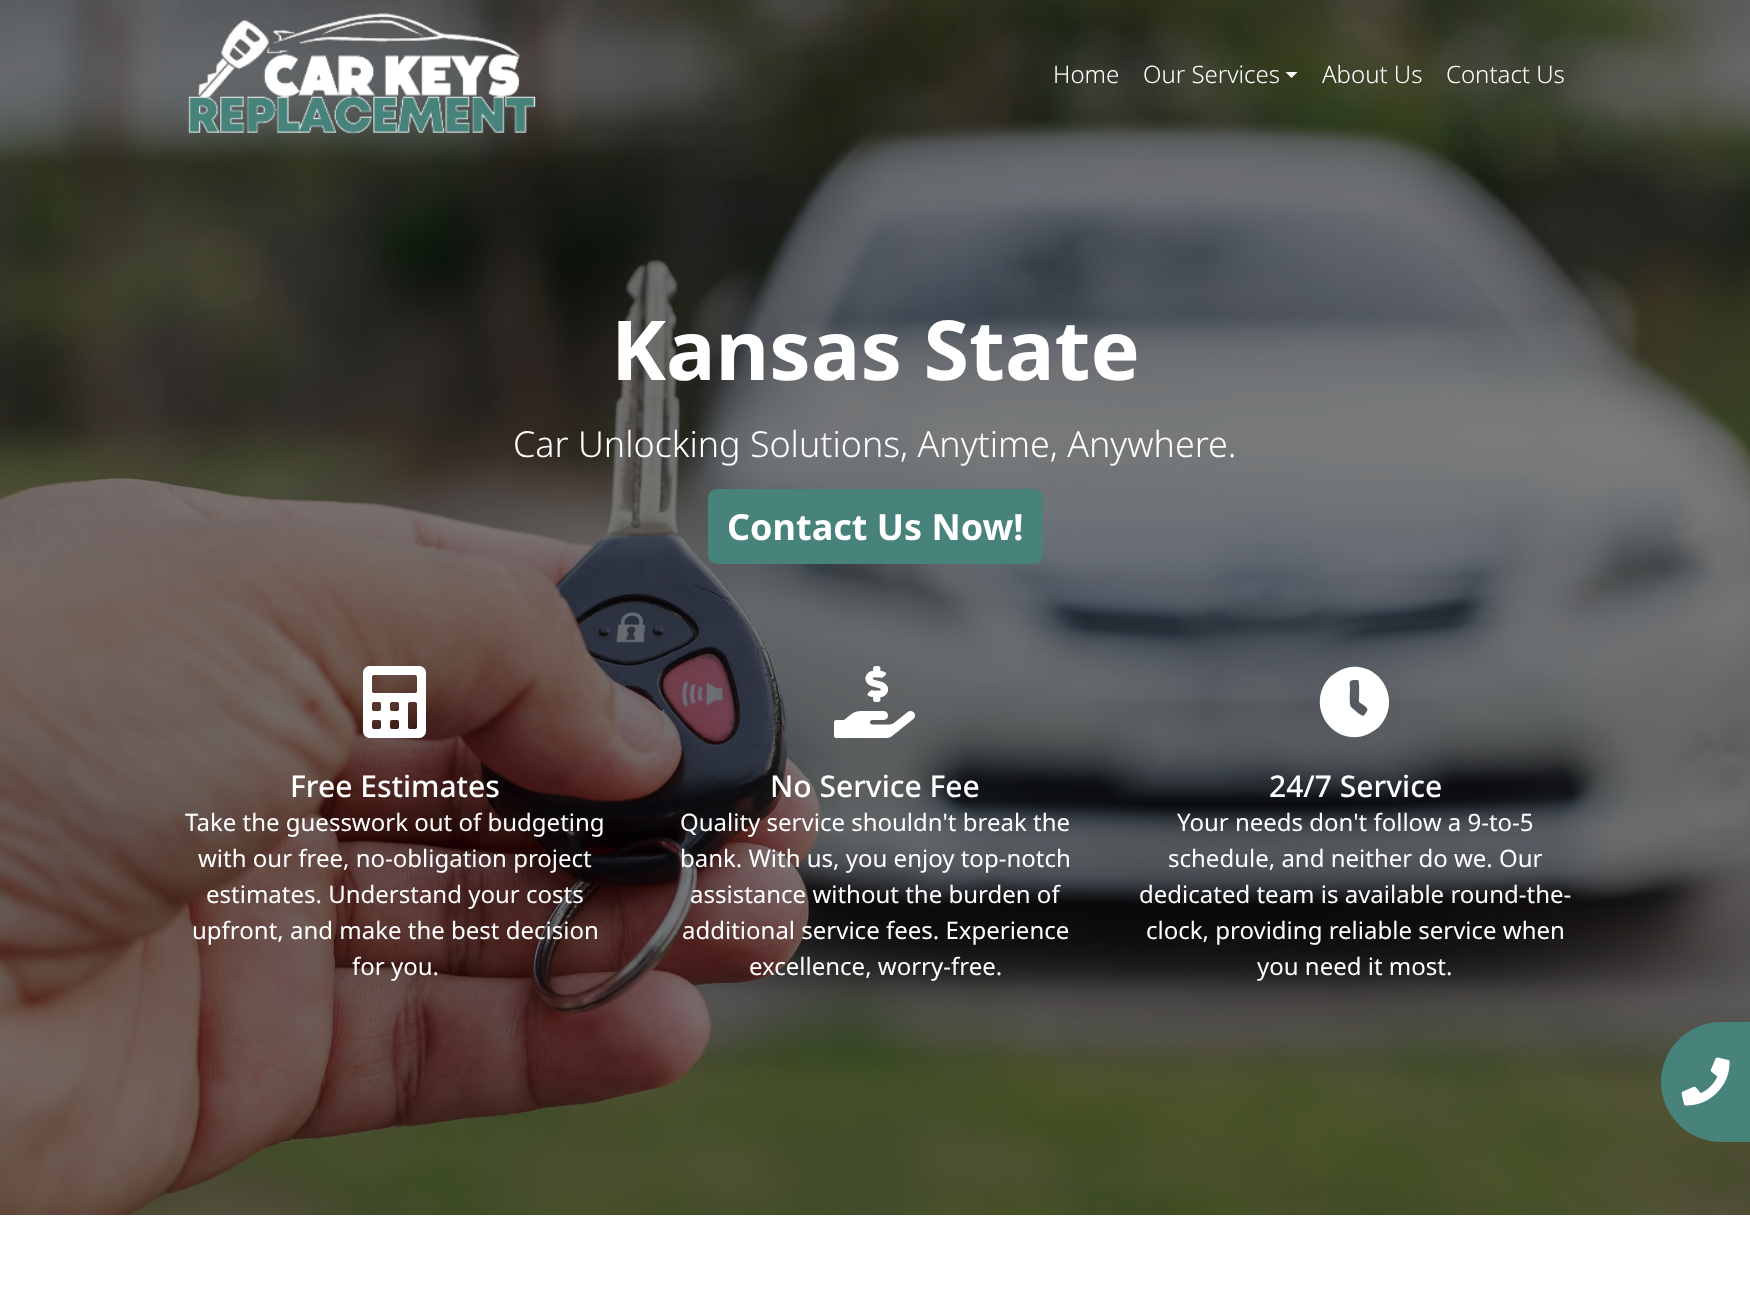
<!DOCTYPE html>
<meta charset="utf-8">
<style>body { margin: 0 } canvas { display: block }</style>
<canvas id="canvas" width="1750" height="1291"></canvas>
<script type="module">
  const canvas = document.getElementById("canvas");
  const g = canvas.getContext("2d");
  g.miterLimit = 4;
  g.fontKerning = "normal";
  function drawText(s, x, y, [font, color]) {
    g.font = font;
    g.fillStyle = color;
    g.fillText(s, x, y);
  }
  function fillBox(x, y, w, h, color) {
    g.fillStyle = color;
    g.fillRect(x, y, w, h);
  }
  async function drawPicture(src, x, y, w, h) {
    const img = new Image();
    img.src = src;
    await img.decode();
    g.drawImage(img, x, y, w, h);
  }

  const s1 = ["300 24px Noto Sans", "#FFFFFF"];
  const s2 = ["bold 82.75px Noto Sans", "#FFFFFF"];
  const s3 = ["300 35.85px Noto Sans", "#FFFFFF"];
  const s4 = ["bold 36px Noto Sans", "#FFFFFF"];
  const s5 = ["500 30px Noto Sans", "#FFFFFF"];
  const s6 = ["24px Noto Sans", "#FFFFFF"];

  fillBox(0, 0, 1750, 1291, "#FFFFFF");
  await drawPicture("pic2.png", 0, 0, 1750, 1215);
  await drawPicture("pic1.png", 188, 13, 348, 121);
  drawText("Home", 1053, 83, s1);
  drawText("Our Services", 1143, 83, s1);
  g.beginPath();
  g.moveTo(1285.5, 72);
  g.lineTo(1297.5, 72);
  g.lineTo(1291.5, 78);
  g.closePath();
  g.fill();
  drawText("About Us", 1322, 83, s1);
  drawText("Contact Us", 1446, 83, s1);
  drawText("Kansas State", 611, 380, s2);
  drawText("Car Unlocking Solutions, Anytime, Anywhere.", 513, 457, s3);
  g.fillStyle = "#47827B";
  g.beginPath();
  g.roundRect(709, 490, 333, 73, 8);
  g.fill();
  g.strokeStyle = "#47827B";
  g.lineWidth = 2;
  g.stroke();
  drawText("Contact Us Now!", 727, 540, s4);
  await drawPicture("pic3.png", 363, 666, 63, 72);
  drawText("Free Estimates", 290, 797, s5);
  drawText("Take the guesswork out of budgeting", 185, 831, s6);
  drawText("with our free, no-obligation project", 198, 867, s6);
  drawText("estimates. Understand your costs", 206, 903, s6);
  drawText("upfront, and make the best decision", 192, 939, s6);
  drawText("for you.", 352, 975, s6);
  await drawPicture("pic4.png", 834, 666, 81, 72);
  drawText("No Service Fee", 770, 797, s5);
  drawText("Quality service shouldn't break the", 680, 831, s6);
  drawText("bank. With us, you enjoy top-notch", 680, 867, s6);
  drawText("assistance without the burden of", 690, 903, s6);
  drawText("additional service fees. Experience", 682, 939, s6);
  drawText("excellence, worry-free.", 749, 975, s6);
  g.beginPath();
  g.moveTo(1330, 677);
  g.bezierCurveTo(1336, 672, 1343, 668, 1351, 667);
  g.bezierCurveTo(1383, 664, 1402, 703, 1379, 727);
  g.bezierCurveTo(1373, 732, 1366, 736, 1358, 737);
  g.bezierCurveTo(1326, 740, 1307, 701, 1330, 677);
  g.closePath();
  g.moveTo(1367, 711);
  g.bezierCurveTo(1370, 708, 1360, 703, 1359, 702);
  g.bezierCurveTo(1359, 699, 1360, 681, 1358, 680);
  g.lineTo(1354, 680);
  g.bezierCurveTo(1348, 680, 1350, 684, 1350, 689);
  g.bezierCurveTo(1350, 693, 1349, 704, 1351, 707);
  g.lineTo(1358, 713);
  g.bezierCurveTo(1364, 717, 1363, 717, 1367, 711);
  g.closePath();
  g.fill();
  drawText("24/7 Service", 1269, 797, s5);
  drawText("Your needs don't follow a 9-to-5", 1177, 831, s6);
  drawText("schedule, and neither do we. Our", 1168, 867, s6);
  drawText("dedicated team is available round-the-", 1139, 903, s6);
  drawText("clock, providing reliable service when", 1146, 939, s6);
  drawText("you need it most.", 1257, 975, s6);
  g.fillStyle = "#47827B";
  g.beginPath();
  g.moveTo(1721, 1022);
  g.lineTo(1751, 1022);
  g.lineTo(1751, 1142);
  g.lineTo(1721, 1142);
  g.bezierCurveTo(1688, 1142, 1661, 1115, 1661, 1082);
  g.bezierCurveTo(1661, 1049, 1688, 1022, 1721, 1022);
  g.closePath();
  g.fill();
  await drawPicture("pic5.png", 1681, 1057, 49, 49);
</script>
